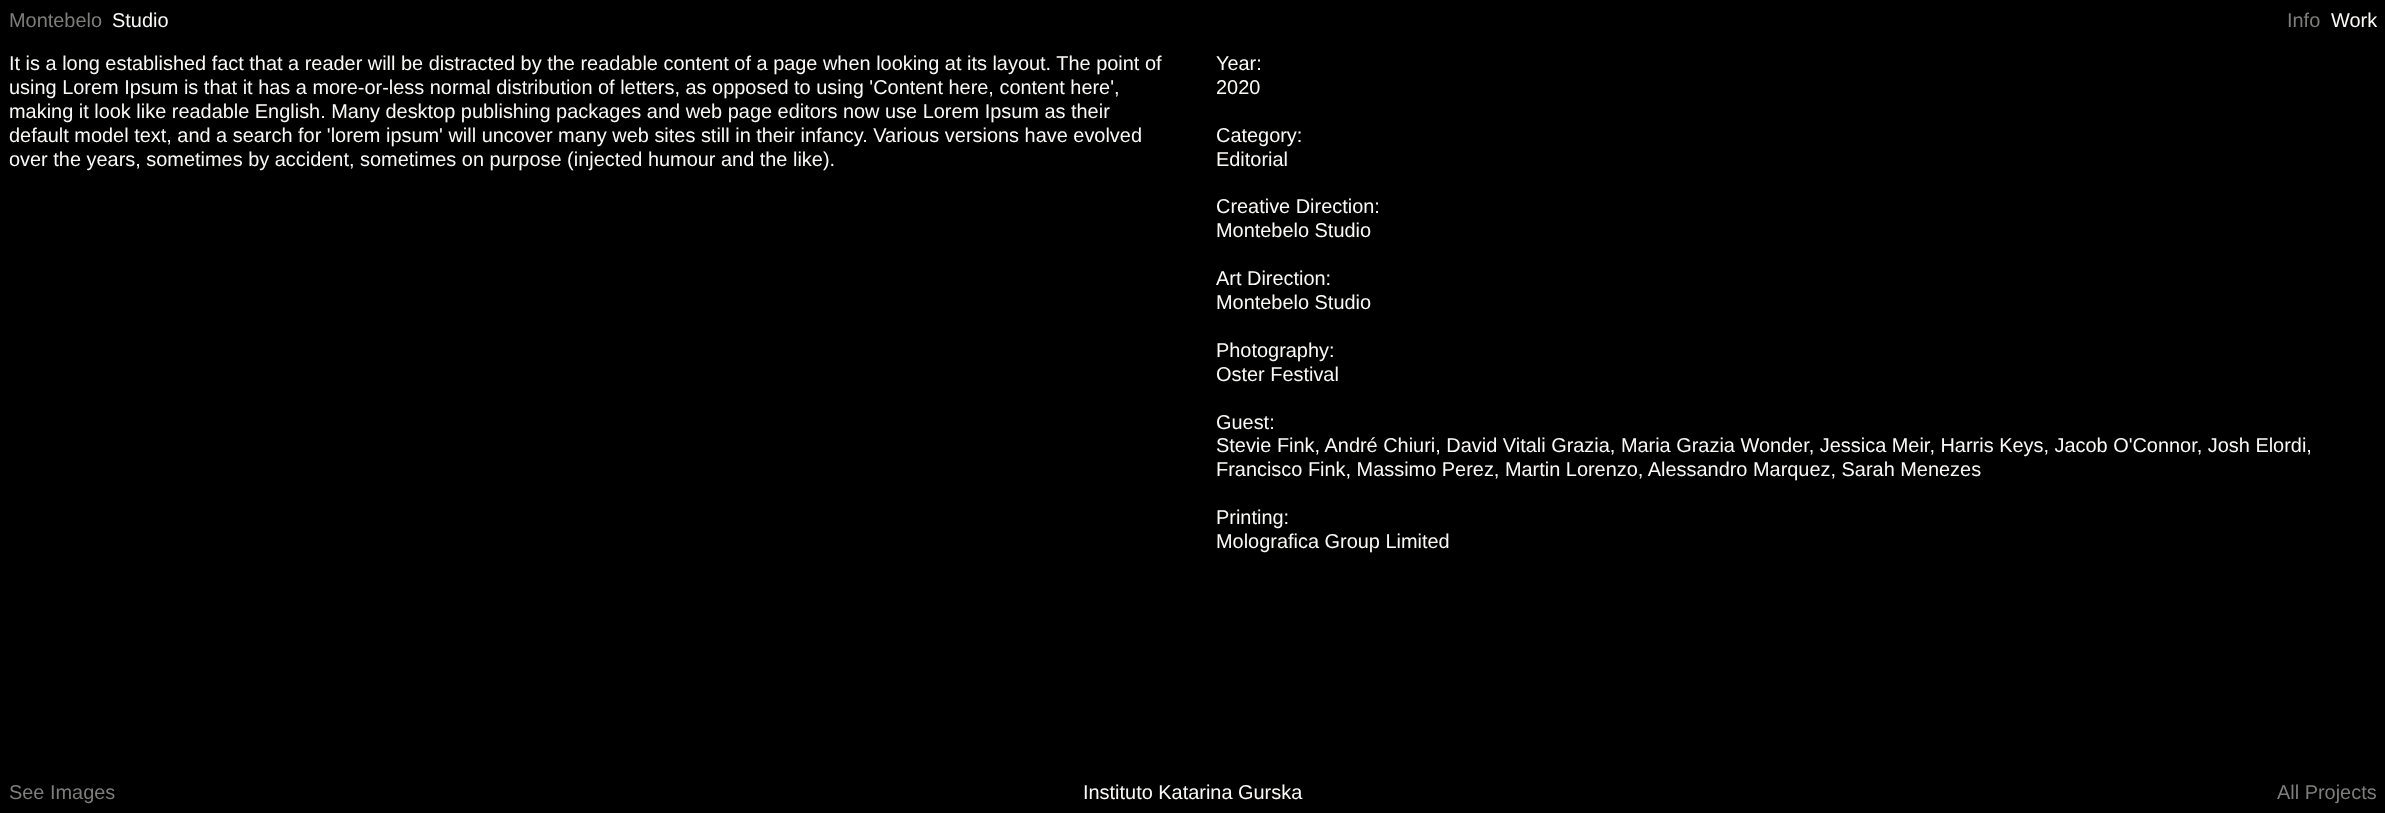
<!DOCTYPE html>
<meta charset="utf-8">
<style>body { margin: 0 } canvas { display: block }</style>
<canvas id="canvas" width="2385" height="813"></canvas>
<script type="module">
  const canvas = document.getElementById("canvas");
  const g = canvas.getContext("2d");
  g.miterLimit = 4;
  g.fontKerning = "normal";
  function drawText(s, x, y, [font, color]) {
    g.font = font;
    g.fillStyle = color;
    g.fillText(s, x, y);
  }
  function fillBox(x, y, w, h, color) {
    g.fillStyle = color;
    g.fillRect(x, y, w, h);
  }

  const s1 = ["19.93px Liberation Sans", "#7D7D7C"];
  const s2 = ["19.93px Liberation Sans", "#FAF9F7"];

  fillBox(0, 0, 2385, 813, "#000000");
  drawText("Montebelo", 9, 27, s1);
  drawText("Studio", 112, 27, s2);
  drawText("Info", 2287, 27, s1);
  drawText("Work", 2331, 27, s2);
  drawText("It is a long established fact that a reader will be distracted by the readable content of a page when looking at its layout. The point of", 9, 70, s2);
  drawText("using Lorem Ipsum is that it has a more-or-less normal distribution of letters, as opposed to using 'Content here, content here',", 9, 94, s2);
  drawText("making it look like readable English. Many desktop publishing packages and web page editors now use Lorem Ipsum as their", 9, 118, s2);
  drawText("default model text, and a search for 'lorem ipsum' will uncover many web sites still in their infancy. Various versions have evolved", 9, 142, s2);
  drawText("over the years, sometimes by accident, sometimes on purpose (injected humour and the like).", 9, 166, s2);
  drawText("Year:", 1216, 70, s2);
  drawText("2020", 1216, 94, s2);
  drawText("Category:", 1216, 142, s2);
  drawText("Editorial", 1216, 166, s2);
  drawText("Creative Direction:", 1216, 213, s2);
  drawText("Montebelo Studio", 1216, 237, s2);
  drawText("Art Direction:", 1216, 285, s2);
  drawText("Montebelo Studio", 1216, 309, s2);
  drawText("Photography:", 1216, 357, s2);
  drawText("Oster Festival", 1216, 381, s2);
  drawText("Guest:", 1216, 429, s2);
  drawText("Stevie Fink, André Chiuri, David Vitali Grazia, Maria Grazia Wonder, Jessica Meir, Harris Keys, Jacob O'Connor, Josh Elordi,", 1216, 452, s2);
  drawText("Francisco Fink, Massimo Perez, Martin Lorenzo, Alessandro Marquez, Sarah Menezes", 1216, 476, s2);
  drawText("Printing:", 1216, 524, s2);
  drawText("Molografica Group Limited", 1216, 548, s2);
  drawText("See Images", 9, 799, s1);
  drawText("Instituto Katarina Gurska", 1083, 799, s2);
  drawText("All Projects", 2277, 799, s1);
</script>
